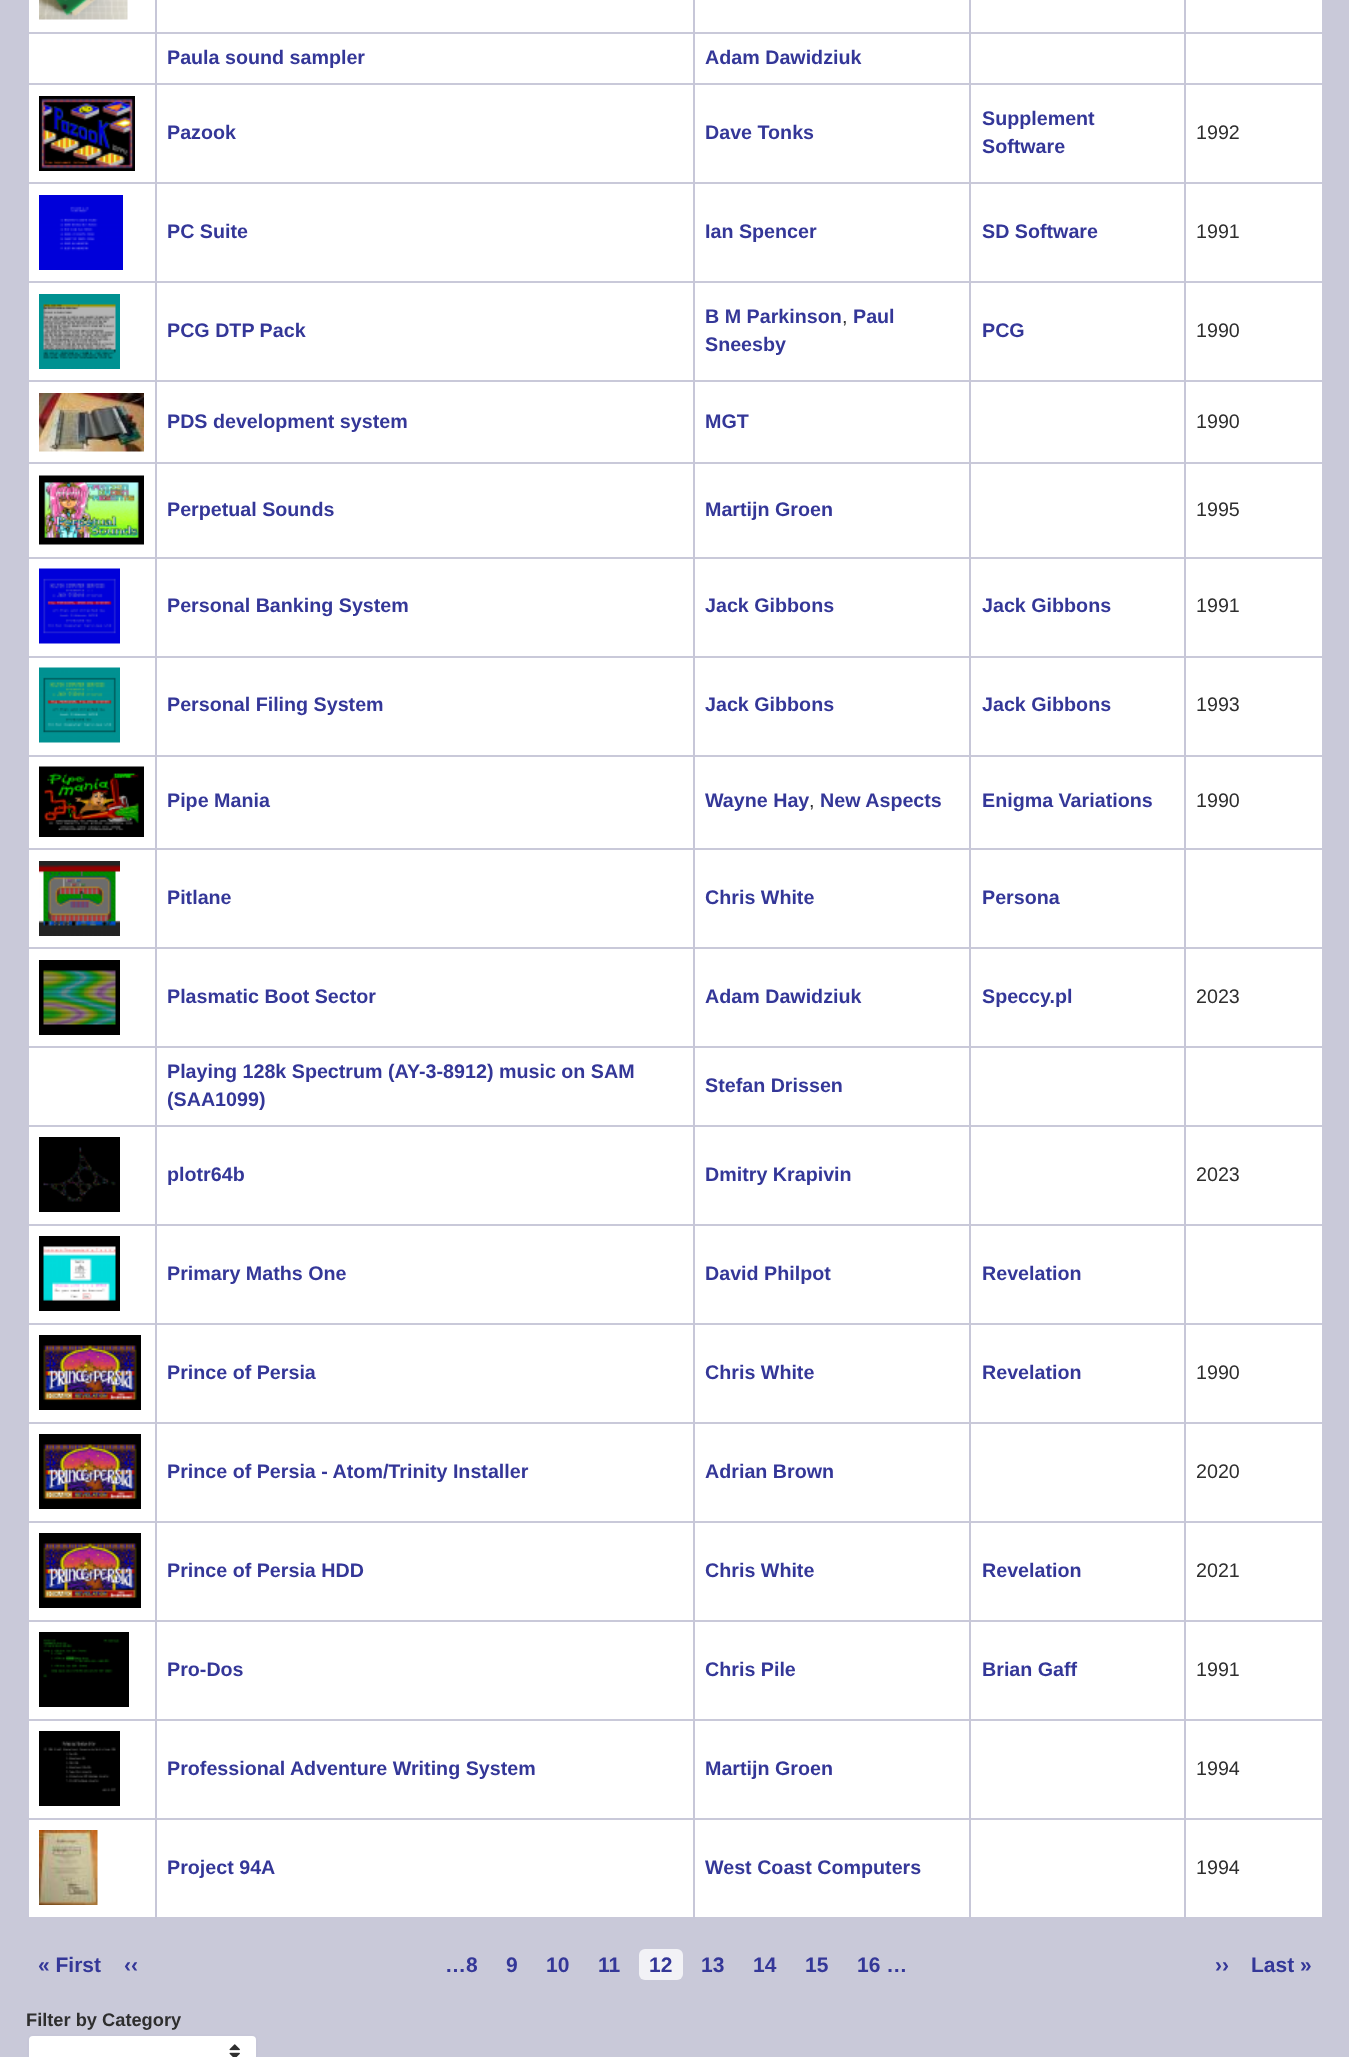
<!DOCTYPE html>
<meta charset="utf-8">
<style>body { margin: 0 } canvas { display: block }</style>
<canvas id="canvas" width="1349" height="2057"></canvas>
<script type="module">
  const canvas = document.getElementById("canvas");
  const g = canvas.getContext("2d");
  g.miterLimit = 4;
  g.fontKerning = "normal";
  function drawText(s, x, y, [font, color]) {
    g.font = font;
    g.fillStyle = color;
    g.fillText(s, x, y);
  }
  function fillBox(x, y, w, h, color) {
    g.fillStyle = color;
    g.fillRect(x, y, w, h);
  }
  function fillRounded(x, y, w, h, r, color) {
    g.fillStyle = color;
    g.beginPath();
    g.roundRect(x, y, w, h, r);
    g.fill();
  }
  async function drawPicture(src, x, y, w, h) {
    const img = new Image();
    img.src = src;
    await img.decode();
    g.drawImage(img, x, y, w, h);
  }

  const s1 = ["bold 19.7px Liberation Sans", "#343798"];
  const s2 = ["19.7px Liberation Sans", "#2E2E2E"];
  const s3 = ["bold 21px Liberation Sans", "#343798"];
  const s4 = ["bold 18.25px Liberation Sans", "#2E2E2E"];

  fillBox(0, 0, 1349, 2057, "#C9C9D9");
  fillBox(29, 0, 1293, 32, "#FFFFFF");
  await drawPicture("pic1.png", 39, 0, 89, 20);
  fillBox(29, 34, 1293, 49, "#FFFFFF");
  drawText("Paula sound sampler", 167, 64, s1);
  drawText("Adam Dawidziuk", 705, 64, s1);
  fillBox(29, 85, 1293, 97, "#FFFFFF");
  await drawPicture("pic2.png", 39, 96, 96, 75);
  drawText("Pazook", 167, 139, s1);
  drawText("Dave Tonks", 705, 139, s1);
  drawText("Supplement", 982, 125, s1);
  drawText("Software", 982, 153, s1);
  drawText("1992", 1196, 139, s2);
  fillBox(29, 184, 1293, 97, "#FFFFFF");
  await drawPicture("pic3.png", 39, 195, 84, 75);
  drawText("PC Suite", 167, 238, s1);
  drawText("Ian Spencer", 705, 238, s1);
  drawText("SD Software", 982, 238, s1);
  drawText("1991", 1196, 238, s2);
  fillBox(29, 283, 1293, 97, "#FFFFFF");
  await drawPicture("pic4.png", 39, 294, 81, 75);
  drawText("PCG DTP Pack", 167, 337, s1);
  drawText("B M Parkinson", 705, 323, s1);
  drawText(",", 842, 323, s2);
  drawText("Paul", 853, 323, s1);
  drawText("Sneesby", 705, 351, s1);
  drawText("PCG", 982, 337, s1);
  drawText("1990", 1196, 337, s2);
  fillBox(29, 382, 1293, 80, "#FFFFFF");
  await drawPicture("pic5.png", 39, 393, 105, 59);
  drawText("PDS development system", 167, 428, s1);
  drawText("MGT", 705, 428, s1);
  drawText("1990", 1196, 428, s2);
  fillBox(29, 464, 1293, 93, "#FFFFFF");
  await drawPicture("pic6.png", 39, 475, 105, 70);
  drawText("Perpetual Sounds", 167, 516, s1);
  drawText("Martijn Groen", 705, 516, s1);
  drawText("1995", 1196, 516, s2);
  fillBox(29, 559, 1293, 97, "#FFFFFF");
  await drawPicture("pic7.png", 39, 568, 81, 76);
  drawText("Personal Banking System", 167, 612, s1);
  drawText("Jack Gibbons", 705, 612, s1);
  drawText("Jack Gibbons", 982, 612, s1);
  drawText("1991", 1196, 612, s2);
  fillBox(29, 658, 1293, 97, "#FFFFFF");
  await drawPicture("pic8.png", 39, 667, 81, 76);
  drawText("Personal Filing System", 167, 711, s1);
  drawText("Jack Gibbons", 705, 711, s1);
  drawText("Jack Gibbons", 982, 711, s1);
  drawText("1993", 1196, 711, s2);
  fillBox(29, 757, 1293, 91, "#FFFFFF");
  await drawPicture("pic9.png", 39, 766, 105, 71);
  drawText("Pipe Mania", 167, 807, s1);
  drawText("Wayne Hay", 705, 807, s1);
  drawText(",", 809, 807, s2);
  drawText("New Aspects", 820, 807, s1);
  drawText("Enigma Variations", 982, 807, s1);
  drawText("1990", 1196, 807, s2);
  fillBox(29, 850, 1293, 97, "#FFFFFF");
  await drawPicture("pic10.png", 39, 861, 81, 75);
  drawText("Pitlane", 167, 904, s1);
  drawText("Chris White", 705, 904, s1);
  drawText("Persona", 982, 904, s1);
  fillBox(29, 949, 1293, 97, "#FFFFFF");
  await drawPicture("pic11.png", 39, 960, 81, 75);
  drawText("Plasmatic Boot Sector", 167, 1003, s1);
  drawText("Adam Dawidziuk", 705, 1003, s1);
  drawText("Speccy.pl", 982, 1003, s1);
  drawText("2023", 1196, 1003, s2);
  fillBox(29, 1048, 1293, 77, "#FFFFFF");
  drawText("Playing 128k Spectrum (AY-3-8912) music on SAM", 167, 1078, s1);
  drawText("(SAA1099)", 167, 1106, s1);
  drawText("Stefan Drissen", 705, 1092, s1);
  fillBox(29, 1127, 1293, 97, "#FFFFFF");
  await drawPicture("pic12.png", 39, 1137, 81, 75);
  drawText("plotr64b", 167, 1181, s1);
  drawText("Dmitry Krapivin", 705, 1181, s1);
  drawText("2023", 1196, 1181, s2);
  fillBox(29, 1226, 1293, 97, "#FFFFFF");
  await drawPicture("pic13.png", 39, 1236, 81, 75);
  drawText("Primary Maths One", 167, 1280, s1);
  drawText("David Philpot", 705, 1280, s1);
  drawText("Revelation", 982, 1280, s1);
  fillBox(29, 1325, 1293, 97, "#FFFFFF");
  await drawPicture("pic14.png", 39, 1335, 102, 75);
  drawText("Prince of Persia", 167, 1379, s1);
  drawText("Chris White", 705, 1379, s1);
  drawText("Revelation", 982, 1379, s1);
  drawText("1990", 1196, 1379, s2);
  fillBox(29, 1424, 1293, 97, "#FFFFFF");
  await drawPicture("pic14.png", 39, 1434, 102, 75);
  drawText("Prince of Persia - Atom/Trinity Installer", 167, 1478, s1);
  drawText("Adrian Brown", 705, 1478, s1);
  drawText("2020", 1196, 1478, s2);
  fillBox(29, 1523, 1293, 97, "#FFFFFF");
  await drawPicture("pic14.png", 39, 1533, 102, 75);
  drawText("Prince of Persia HDD", 167, 1577, s1);
  drawText("Chris White", 705, 1577, s1);
  drawText("Revelation", 982, 1577, s1);
  drawText("2021", 1196, 1577, s2);
  fillBox(29, 1622, 1293, 97, "#FFFFFF");
  await drawPicture("pic15.png", 39, 1632, 90, 75);
  drawText("Pro-Dos", 167, 1676, s1);
  drawText("Chris Pile", 705, 1676, s1);
  drawText("Brian Gaff", 982, 1676, s1);
  drawText("1991", 1196, 1676, s2);
  fillBox(29, 1721, 1293, 97, "#FFFFFF");
  await drawPicture("pic16.png", 39, 1731, 81, 75);
  drawText("Professional Adventure Writing System", 167, 1775, s1);
  drawText("Martijn Groen", 705, 1775, s1);
  drawText("1994", 1196, 1775, s2);
  fillBox(29, 1820, 1293, 97, "#FFFFFF");
  await drawPicture("pic17.png", 39, 1830, 59, 75);
  fillBox(155, 0, 2, 1919, "#C7C7D8");
  drawText("Project 94A", 167, 1874, s1);
  fillBox(693, 0, 2, 1919, "#C7C7D8");
  drawText("West Coast Computers", 705, 1874, s1);
  fillBox(969, 0, 2, 1919, "#C7C7D8");
  fillBox(1184, 0, 2, 1919, "#C7C7D8");
  drawText("1994", 1196, 1874, s2);
  drawText("« First", 38, 1972, s3);
  drawText("‹‹", 124, 1972, s3);
  drawText("…8", 445, 1972, s3);
  drawText("9", 506, 1972, s3);
  drawText("10", 546, 1972, s3);
  drawText("11", 598, 1972, s3);
  fillRounded(639, 1949, 44, 31, 6, "#F2F2F6");
  drawText("12", 649, 1972, s3);
  drawText("13", 701, 1972, s3);
  drawText("14", 753, 1972, s3);
  drawText("15", 805, 1972, s3);
  drawText("16 …", 857, 1972, s3);
  drawText("››", 1215, 1972, s3);
  drawText("Last »", 1251, 1972, s3);
  drawText("Filter by Category", 26, 2026, s4);
  g.fillStyle = "#FFFFFF";
  g.beginPath();
  g.roundRect(28, 2035, 229, 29, 5);
  g.fill();
  g.strokeStyle = "#C7C7D8";
  g.lineWidth = 2;
  g.stroke();
  await drawPicture("pic18.png", 229, 2044, 11, 13);
</script>
